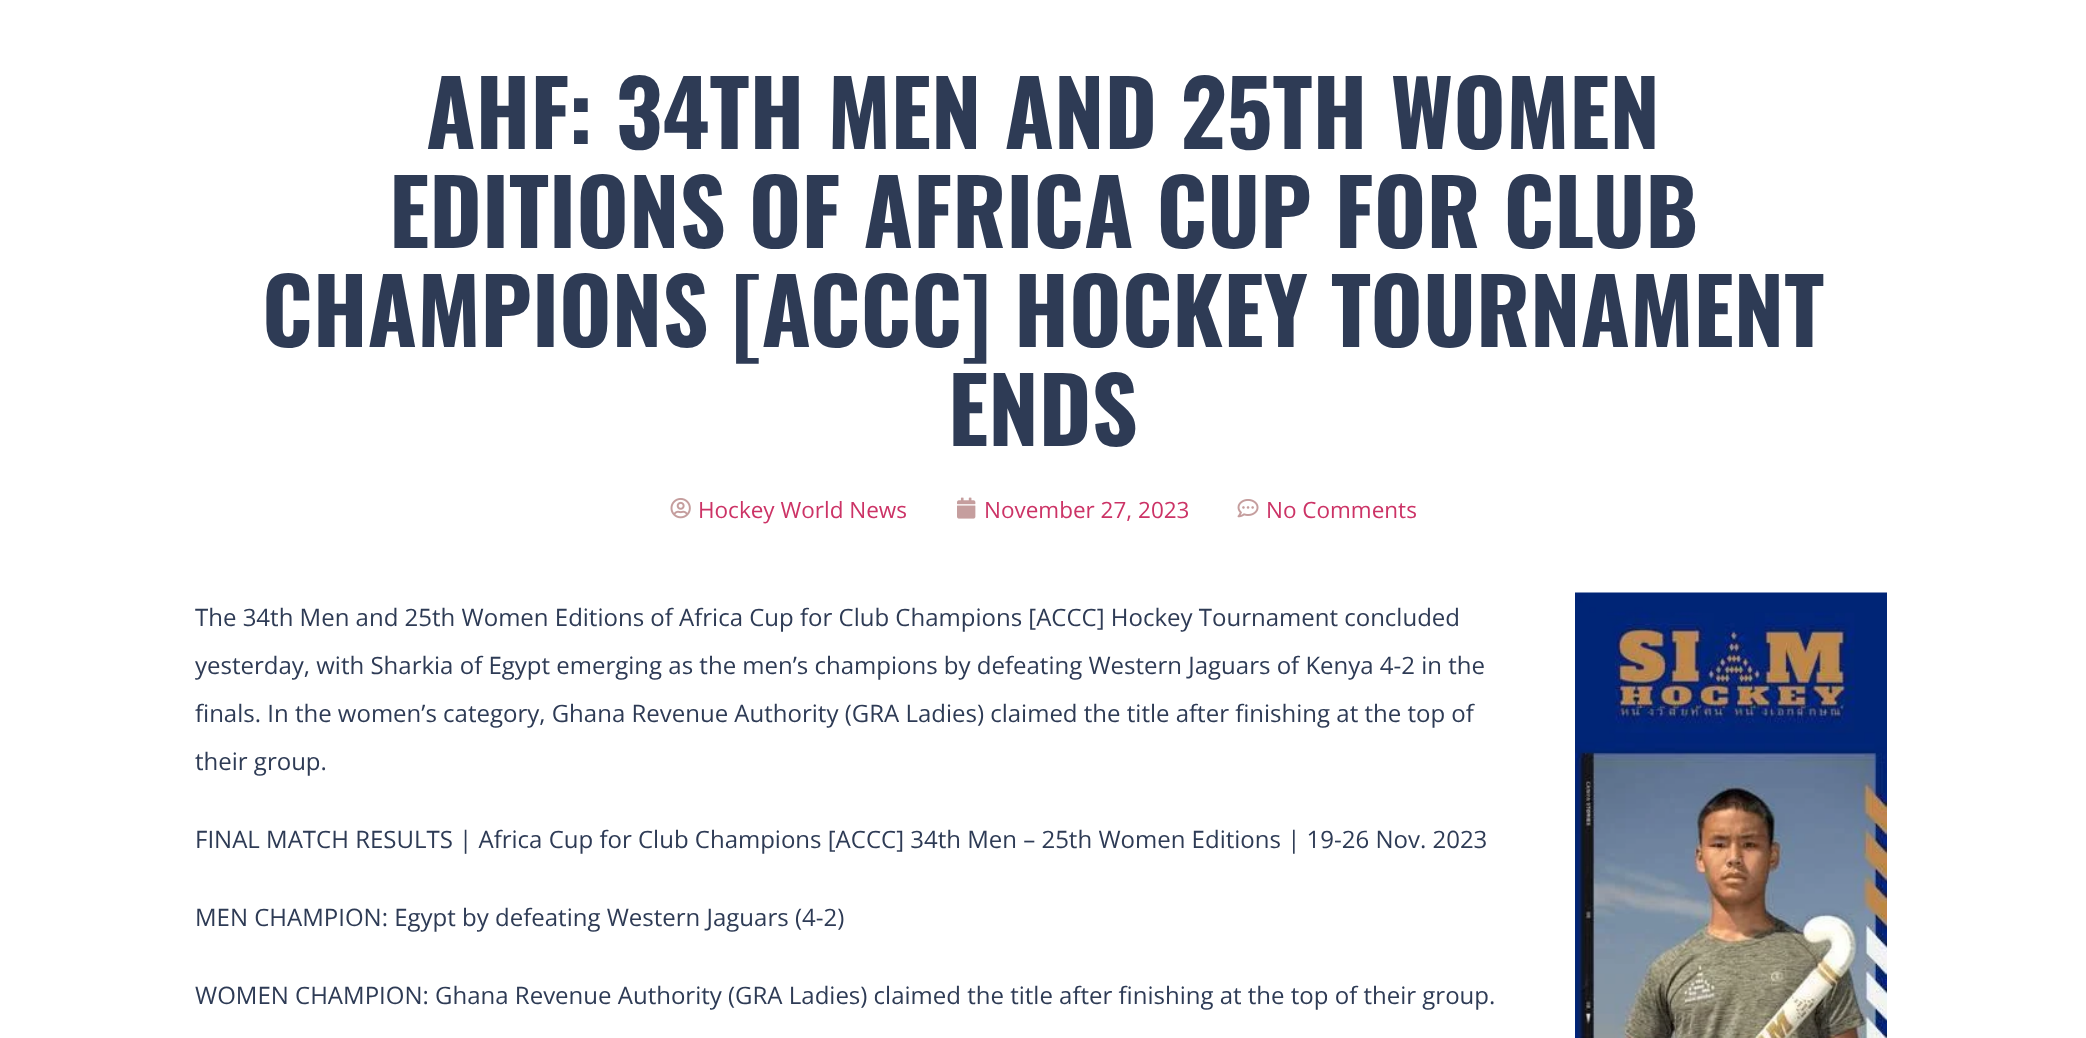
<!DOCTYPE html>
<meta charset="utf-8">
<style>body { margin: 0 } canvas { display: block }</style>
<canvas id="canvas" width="2086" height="1038"></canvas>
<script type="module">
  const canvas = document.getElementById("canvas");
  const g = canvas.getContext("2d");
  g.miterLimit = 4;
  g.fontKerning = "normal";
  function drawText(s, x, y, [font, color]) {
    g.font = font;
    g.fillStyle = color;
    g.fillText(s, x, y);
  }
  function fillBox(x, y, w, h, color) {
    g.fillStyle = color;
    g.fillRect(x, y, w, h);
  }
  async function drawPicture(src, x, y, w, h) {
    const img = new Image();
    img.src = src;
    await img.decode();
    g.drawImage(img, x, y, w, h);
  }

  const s1 = ["bold 90px Oswald", "#2E3B55"];
  const s2 = ["22.5px Open Sans", "#CC3366"];
  const s3 = ["24px Open Sans", "#2E3B55"];

  fillBox(0, 0, 2086, 1038, "#FFFFFF");
  drawText("AHF: 34TH MEN AND 25TH WOMEN", 426, 149, s1);
  drawText("EDITIONS OF AFRICA CUP FOR CLUB", 389, 248, s1);
  drawText("CHAMPIONS [ACCC] HOCKEY TOURNAMENT", 262, 347, s1);
  drawText("ENDS", 948, 446, s1);
  await drawPicture("pic1.png", 670, 498, 21, 21);
  drawText("Hockey World News", 698, 518, s2);
  await drawPicture("pic2.png", 957, 497, 19, 22);
  drawText("November 27, 2023", 984, 518, s2);
  await drawPicture("pic3.png", 1237, 499, 22, 19);
  drawText("No Comments", 1266, 518, s2);
  drawText("The 34th Men and 25th Women Editions of Africa Cup for Club Champions [ACCC] Hockey Tournament concluded", 195, 626, s3);
  drawText("yesterday, with Sharkia of Egypt emerging as the men’s champions by defeating Western Jaguars of Kenya 4-2 in the", 195, 674, s3);
  drawText("finals. In the women’s category, Ghana Revenue Authority (GRA Ladies) claimed the title after finishing at the top of", 195, 722, s3);
  drawText("their group.", 195, 770, s3);
  drawText("FINAL MATCH RESULTS | Africa Cup for Club Champions [ACCC] 34th Men – 25th Women Editions | 19-26 Nov. 2023", 195, 848, s3);
  drawText("MEN CHAMPION: Egypt by defeating Western Jaguars (4-2)", 195, 926, s3);
  drawText("WOMEN CHAMPION: Ghana Revenue Authority (GRA Ladies) claimed the title after finishing at the top of their group.", 195, 1004, s3);
  await drawPicture("pic4.png", 1575, 592, 312, 446);
</script>
